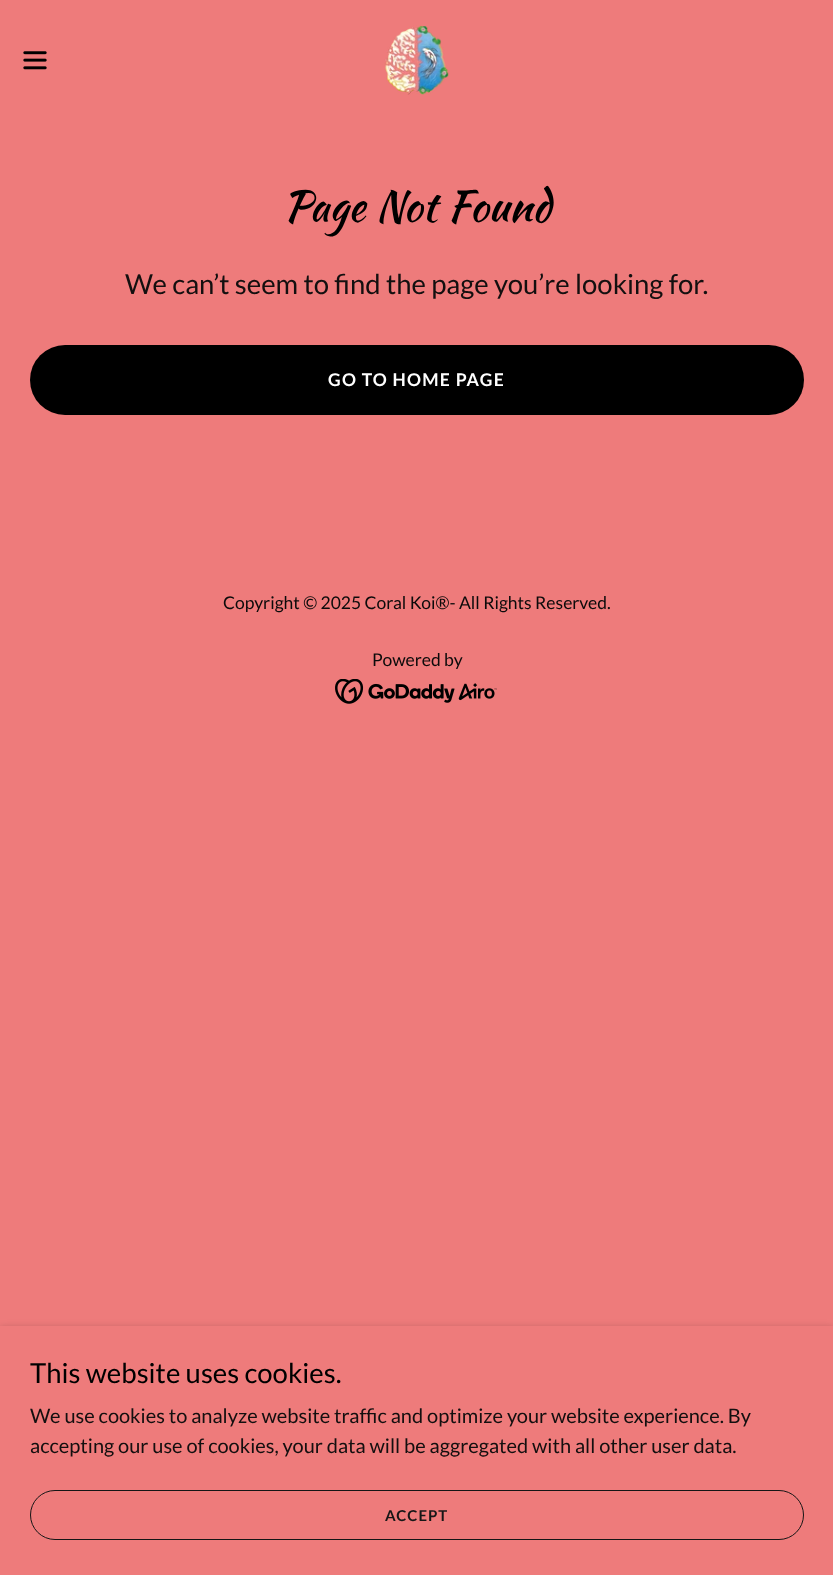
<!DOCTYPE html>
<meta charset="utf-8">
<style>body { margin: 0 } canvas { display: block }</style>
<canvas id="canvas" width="833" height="1575"></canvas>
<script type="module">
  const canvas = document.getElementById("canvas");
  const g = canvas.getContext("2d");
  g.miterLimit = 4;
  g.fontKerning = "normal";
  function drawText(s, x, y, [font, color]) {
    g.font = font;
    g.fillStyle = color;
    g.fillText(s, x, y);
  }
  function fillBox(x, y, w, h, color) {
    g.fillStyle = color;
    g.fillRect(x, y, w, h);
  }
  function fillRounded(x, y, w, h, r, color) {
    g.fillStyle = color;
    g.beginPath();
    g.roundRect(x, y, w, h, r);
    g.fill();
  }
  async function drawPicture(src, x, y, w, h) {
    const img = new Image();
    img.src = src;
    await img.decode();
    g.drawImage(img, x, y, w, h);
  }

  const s1 = ["42.5px Kaushan Script", "#000000"];
  const s2 = ["27.5px Lato", "#130F0F"];
  const s3 = ["bold 17.5px Lato", "#FFFFFF"];
  const s4 = ["17.5px Lato", "#0B0A0A"];
  const s5 = ["27.5px Lato", "#000000"];
  const s6 = ["20px Lato", "#130F0F"];
  const s7 = ["bold 15px Lato", "#161616"];

  fillBox(0, 0, 833, 1575, "#EE7B7B");
  await drawPicture("pic1.png", 23, 51, 24, 19);
  await drawPicture("pic2.png", 384, 25, 65, 70);
  drawText("Page Not Found", 283, 221, s1);
  drawText("We can’t seem to find the page you’re looking for.", 125, 294, s2);
  fillRounded(30, 345, 774, 70, 35, "#000000");
  g.letterSpacing = "1.25px";
  drawText("GO TO HOME PAGE", 328, 386, s3);
  g.letterSpacing = "0px";
  drawText("Copyright © 2025 Coral Koi®- All Rights Reserved.", 223, 609, s4);
  drawText("Powered by", 372, 666, s4);
  await drawPicture("pic3.png", 335, 679, 162, 25);
  g.fillStyle = "rgba(0, 0, 0, 0.3)";
  g.filter = "blur(4px)";
  g.beginPath();
  g.rect(0, 1329, 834, 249);
  g.fill();
  g.filter = "none";
  fillBox(0, 1326, 833, 249, "#EE7B7B");
  drawText("This website uses cookies.", 30, 1383, s5);
  drawText("We use cookies to analyze website traffic and optimize your website experience. By", 30, 1423, s6);
  drawText("accepting our use of cookies, your data will be aggregated with all other user data.", 30, 1453, s6);
  g.beginPath();
  g.roundRect(30.5, 1490.5, 773, 49, 24.5);
  g.strokeStyle = "#161616";
  g.stroke();
  g.letterSpacing = "1px";
  drawText("ACCEPT", 385, 1521, s7);
</script>
